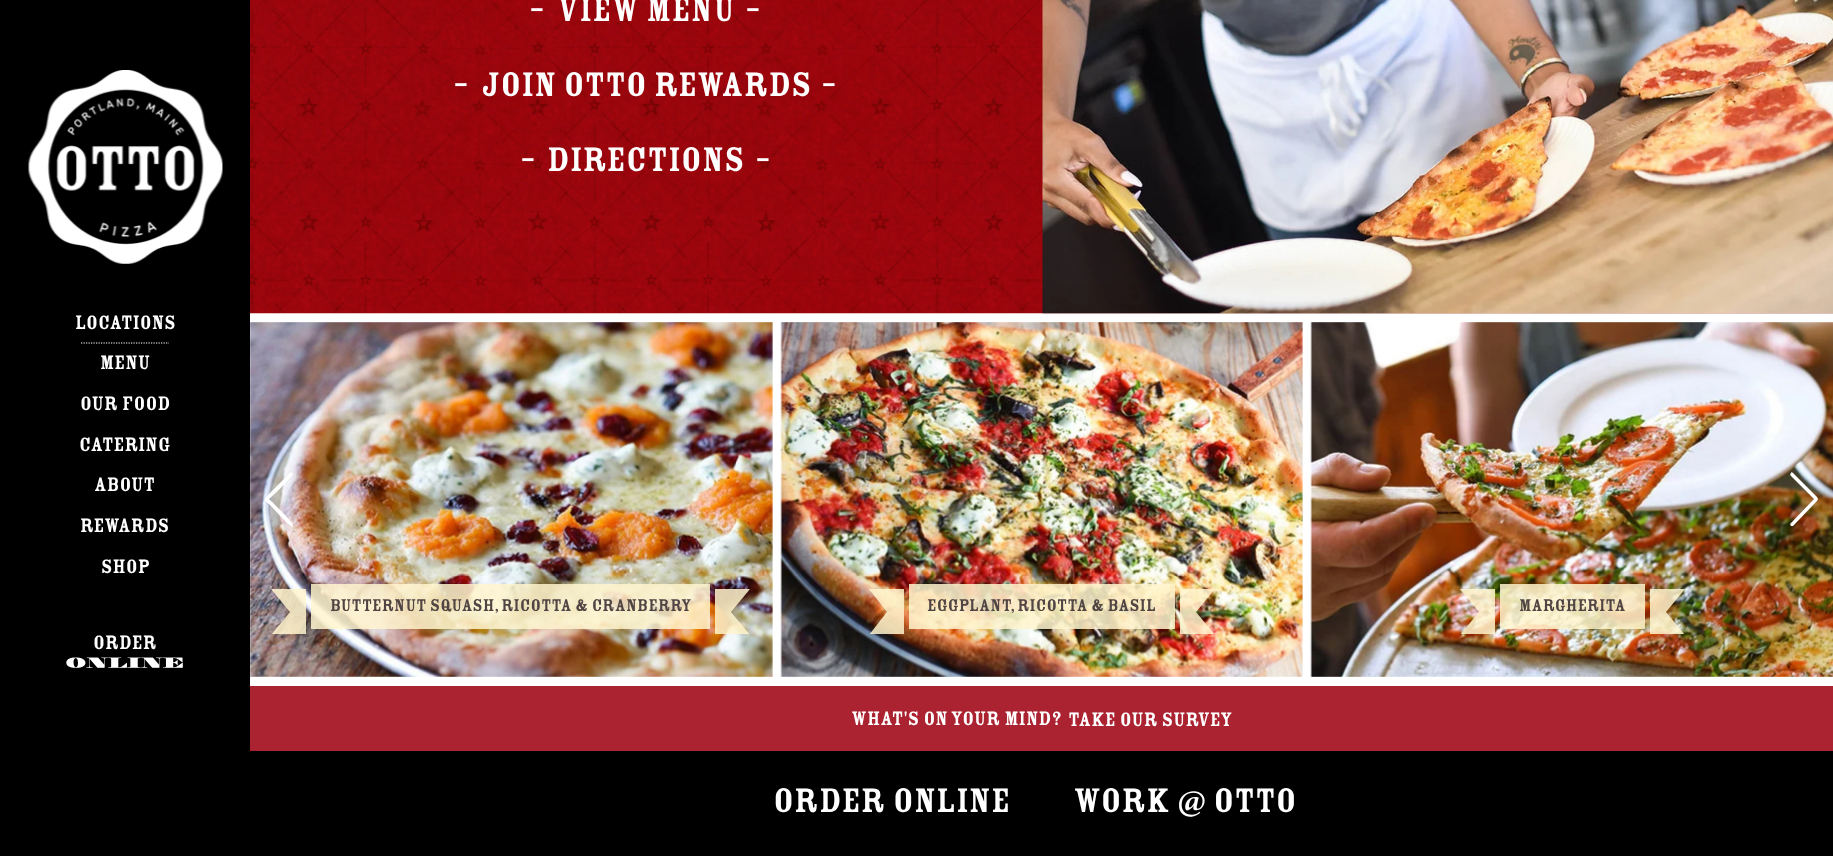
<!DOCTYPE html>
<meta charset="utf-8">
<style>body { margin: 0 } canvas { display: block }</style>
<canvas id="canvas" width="1833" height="856"></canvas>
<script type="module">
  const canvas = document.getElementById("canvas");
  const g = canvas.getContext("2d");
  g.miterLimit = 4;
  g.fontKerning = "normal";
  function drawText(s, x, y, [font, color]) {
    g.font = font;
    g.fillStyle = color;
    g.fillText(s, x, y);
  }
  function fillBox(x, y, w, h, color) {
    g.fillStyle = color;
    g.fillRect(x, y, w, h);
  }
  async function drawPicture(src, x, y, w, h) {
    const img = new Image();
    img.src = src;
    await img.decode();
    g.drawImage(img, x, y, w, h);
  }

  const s1 = ["bold 37.5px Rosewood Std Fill", "#FFFFFF"];
  const s2 = ["bold 21.25px Rosewood Std Fill", "#FFFFFF"];
  const s3 = ["bold 18.75px Rosewood Std Fill", "#514544"];

  fillBox(0, 0, 1833, 856, "#FFFFFF");
  await drawPicture("pic1.png", 250, 0, 1583, 314);
  drawText("–", 529, 21, s1);
  drawText("View Menu", 557, 21, s1);
  drawText("–", 745, 21, s1);
  drawText("–", 453, 96, s1);
  drawText("Join OTTO Rewards", 481, 96, s1);
  drawText("–", 821, 96, s1);
  drawText("–", 520, 171, s1);
  drawText("Directions", 547, 171, s1);
  drawText("–", 755, 171, s1);
  await drawPicture("pic2.png", 1042, 0, 791, 314);
  fillBox(0, 0, 250, 856, "#000000");
  await drawPicture("pic3.png", 28, 70, 195, 194);
  drawText("LOCATIONS", 75, 329, s2);
  g.beginPath();
  g.moveTo(81, 343);
  g.lineTo(169, 343);
  g.strokeStyle = "#FFFFFF";
  g.lineWidth = 1.2;
  g.setLineDash([1.25, 1.25]);
  g.stroke();
  drawText("MENU", 100, 369, s2);
  drawText("OUR FOOD", 80, 410, s2);
  drawText("CATERING", 79, 451, s2);
  drawText("ABOUT", 94, 491, s2);
  drawText("REWARDS", 80, 532, s2);
  drawText("SHOP", 101, 573, s2);
  drawText("ORDER", 93, 649, s2);
  await drawPicture("pic4.png", 66, 657, 117, 11);
  await drawPicture("pic5.png", 250, 322, 523, 355);
  g.beginPath();
  g.moveTo(290, 473);
  g.bezierCurveTo(291, 472, 293, 473, 293, 474);
  g.bezierCurveTo(293, 476, 272, 497, 269, 499);
  g.bezierCurveTo(272, 502, 294, 523, 293, 525);
  g.bezierCurveTo(292, 529, 289, 524, 286, 522);
  g.lineTo(270, 505);
  g.bezierCurveTo(263, 499, 263, 500, 270, 493);
  g.closePath();
  g.fill();
  await drawPicture("pic7.png", 1310, 322, 523, 355);
  g.beginPath();
  g.moveTo(1791, 526);
  g.bezierCurveTo(1790, 525, 1790, 524, 1791, 523);
  g.lineTo(1814, 499);
  g.lineTo(1791, 476);
  g.bezierCurveTo(1790, 475, 1790, 474, 1791, 473);
  g.bezierCurveTo(1791, 472, 1792, 472, 1793, 473);
  g.lineTo(1817, 497);
  g.lineTo(1818, 499);
  g.lineTo(1817, 501);
  g.lineTo(1793, 526);
  g.bezierCurveTo(1792, 526, 1791, 526, 1791, 526);
  g.closePath();
  g.fill();
  fillBox(311, 584, 399, 45, "rgba(255, 244, 206, 0.85)");
  g.save();
  g.beginPath();
  g.rect(271, 589, 35, 45);
  g.clip();
  g.beginPath();
  g.moveTo(306, 589);
  g.lineTo(271, 589);
  g.lineTo(290, 612);
  g.lineTo(271, 635);
  g.lineTo(306, 635);
  g.closePath();
  g.fill();
  g.restore();
  drawText("Butternut Squash, Ricotta & Cranberry", 330, 611, s3);
  g.save();
  g.beginPath();
  g.rect(715, 589, 35, 45);
  g.clip();
  g.fillStyle = "rgba(255, 244, 206, 0.85)";
  g.beginPath();
  g.moveTo(715, 635);
  g.lineTo(750, 635);
  g.lineTo(731, 612);
  g.lineTo(750, 589);
  g.lineTo(715, 589);
  g.closePath();
  g.fill();
  g.restore();
  await drawPicture("pic6.png", 780, 322, 523, 355);
  fillBox(909, 584, 266, 45, "rgba(255, 244, 206, 0.85)");
  g.save();
  g.beginPath();
  g.rect(869, 589, 35, 45);
  g.clip();
  g.beginPath();
  g.moveTo(904, 589);
  g.lineTo(869, 589);
  g.lineTo(887, 612);
  g.lineTo(869, 635);
  g.lineTo(904, 635);
  g.closePath();
  g.fill();
  g.restore();
  drawText("Eggplant, Ricotta & Basil", 927, 611, s3);
  g.save();
  g.beginPath();
  g.rect(1180, 589, 35, 45);
  g.clip();
  g.fillStyle = "rgba(255, 244, 206, 0.85)";
  g.beginPath();
  g.moveTo(1180, 635);
  g.lineTo(1215, 635);
  g.lineTo(1196, 612);
  g.lineTo(1215, 589);
  g.lineTo(1180, 589);
  g.closePath();
  g.fill();
  g.restore();
  fillBox(1500, 584, 145, 45, "rgba(255, 244, 206, 0.85)");
  g.save();
  g.beginPath();
  g.rect(1460, 589, 35, 45);
  g.clip();
  g.beginPath();
  g.moveTo(1495, 589);
  g.lineTo(1460, 589);
  g.lineTo(1479, 612);
  g.lineTo(1460, 635);
  g.lineTo(1495, 635);
  g.closePath();
  g.fill();
  g.restore();
  drawText("Margherita", 1519, 611, s3);
  g.save();
  g.beginPath();
  g.rect(1650, 589, 35, 45);
  g.clip();
  g.fillStyle = "rgba(255, 244, 206, 0.85)";
  g.beginPath();
  g.moveTo(1650, 635);
  g.lineTo(1685, 635);
  g.lineTo(1666, 612);
  g.lineTo(1685, 589);
  g.lineTo(1650, 589);
  g.closePath();
  g.fill();
  g.restore();
  fillBox(250, 686, 1583, 65, "#AB2230");
  drawText("What's on your mind?", 851, 725, s2);
  drawText("Take our Survey", 1068, 726, s2);
  fillBox(250, 751, 1583, 105, "#000000");
  drawText("Order Online", 773, 812, s1);
  drawText("Work @ OTTO", 1073, 812, s1);
</script>
